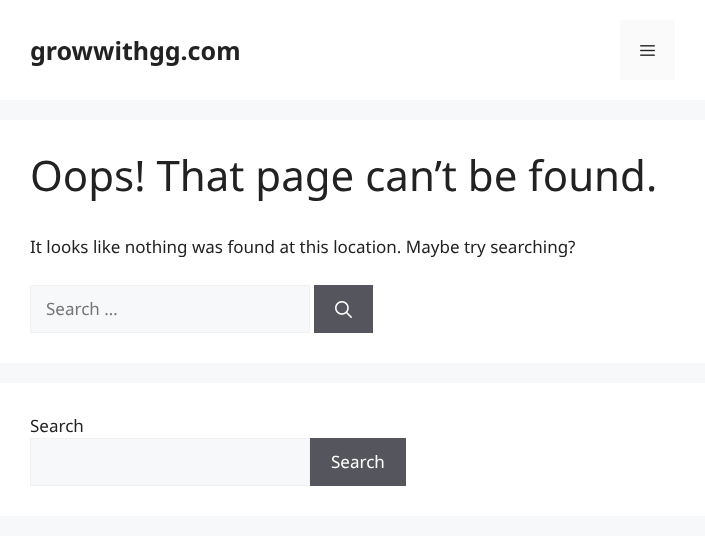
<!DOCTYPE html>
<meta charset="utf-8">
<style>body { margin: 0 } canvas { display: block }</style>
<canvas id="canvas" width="705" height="540"></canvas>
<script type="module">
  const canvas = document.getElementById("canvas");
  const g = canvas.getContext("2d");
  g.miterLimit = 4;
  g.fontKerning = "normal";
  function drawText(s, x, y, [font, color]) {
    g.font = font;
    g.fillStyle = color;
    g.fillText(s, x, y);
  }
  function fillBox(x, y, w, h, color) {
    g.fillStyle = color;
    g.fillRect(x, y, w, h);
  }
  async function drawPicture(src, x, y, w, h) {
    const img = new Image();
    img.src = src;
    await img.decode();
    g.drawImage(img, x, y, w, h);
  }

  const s1 = ["bold 25px Noto Sans", "#222222"];
  const s2 = ["42px Noto Sans", "#222222"];
  const s3 = ["17px Noto Sans", "#222222"];
  const s4 = ["17px Noto Sans", "#757575"];
  const s5 = ["17px Noto Sans", "#FFFFFF"];

  fillBox(0, 0, 705, 540, "#F7F8F9");
  fillBox(0, 0, 705, 100, "#FFFFFF");
  drawText("growwithgg.com", 30, 60, s1);
  fillBox(620, 20, 55, 60, "#FAFAFA");
  await drawPicture("pic1.png", 640, 45, 15, 11);
  fillBox(0, 120, 705, 243, "#FFFFFF");
  drawText("Oops! That page can’t be found.", 30, 191, s2);
  drawText("It looks like nothing was found at this location. Maybe try searching?", 30, 253, s3);
  g.fillStyle = "#F7F8F9";
  g.beginPath();
  g.rect(30.5, 285.5, 279, 47);
  g.fill();
  g.strokeStyle = "#F0F0F0";
  g.stroke();
  drawText("Search …", 46, 315, s4);
  fillBox(314, 285, 59, 48, "#55555E");
  await drawPicture("pic2.png", 335, 301, 17, 17);
  fillBox(0, 383, 705, 133, "#FFFFFF");
  drawText("Search", 30, 432, s3);
  g.fillStyle = "#F7F8F9";
  g.beginPath();
  g.rect(30.5, 438.5, 279, 47);
  g.fill();
  g.stroke();
  fillBox(310, 438, 96, 48, "#55555E");
  drawText("Search", 331, 468, s5);
  fillBox(0, 536, 705, 4, "#FFFFFF");
</script>
